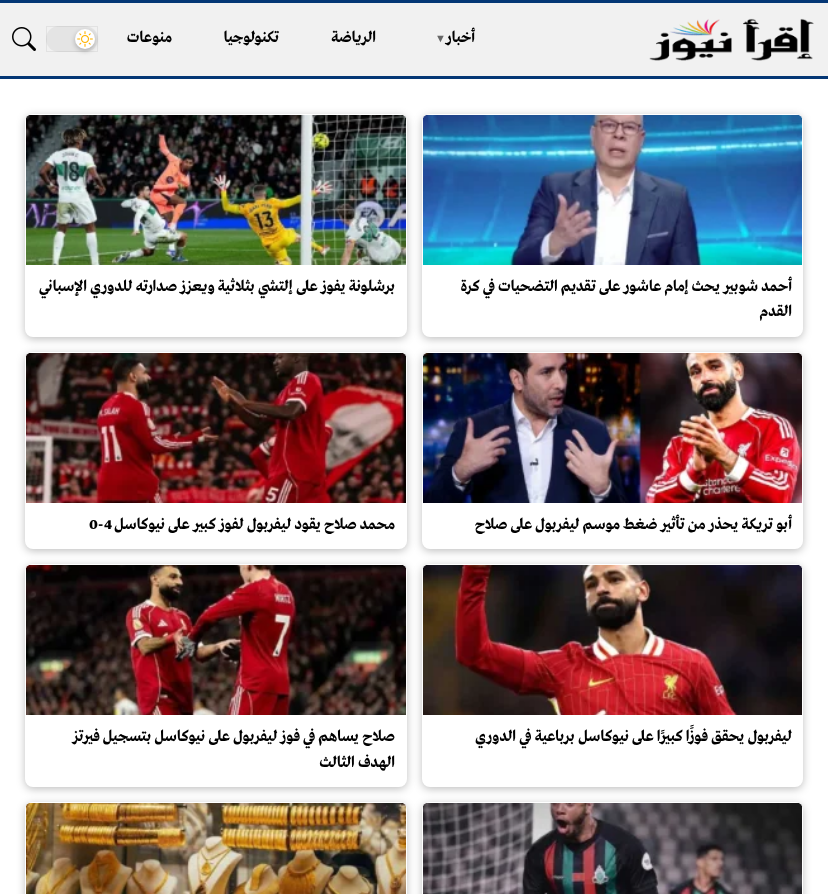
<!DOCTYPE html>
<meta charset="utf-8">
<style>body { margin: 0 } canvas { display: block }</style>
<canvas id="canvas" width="828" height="894"></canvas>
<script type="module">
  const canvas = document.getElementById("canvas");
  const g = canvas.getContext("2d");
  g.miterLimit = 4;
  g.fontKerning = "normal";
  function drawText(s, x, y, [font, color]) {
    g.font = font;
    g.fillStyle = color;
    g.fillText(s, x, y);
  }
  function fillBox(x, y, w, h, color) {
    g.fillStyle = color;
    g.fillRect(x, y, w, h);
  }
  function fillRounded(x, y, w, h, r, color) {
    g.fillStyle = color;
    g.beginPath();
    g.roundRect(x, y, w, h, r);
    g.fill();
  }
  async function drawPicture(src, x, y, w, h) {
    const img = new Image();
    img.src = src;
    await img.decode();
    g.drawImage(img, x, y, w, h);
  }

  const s1 = ["bold 16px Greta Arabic", "#000000"];
  const s2 = ["bold 11px Liberation Serif", "#666666"];

  fillBox(0, 0, 828, 894, "#FFFFFF");
  fillBox(0, 3, 828, 73, "#F1F1F1");
  fillBox(0, 0, 828, 3, "#043775");
  fillBox(0, 76, 828, 3, "#043775");
  await drawPicture("pic1.png", 649, 18, 165, 43);
  g.direction = "rtl";
  drawText("أخبار", 475, 42, s1);
  g.direction = "ltr";
  drawText("▼", 435, 42, s2);
  g.direction = "rtl";
  drawText("الرياضة", 376, 42, s1);
  drawText("تكنولوجيا", 279, 42, s1);
  drawText("منوعات", 172, 42, s1);
  fillRounded(46, 26, 52, 26, 13, "#E4E4E4");
  g.strokeStyle = "rgba(0, 0, 0, 0.06)";
  g.strokeRect(46.5, 26.5, 51, 25);
  g.fillStyle = "rgba(0, 0, 0, 0.25)";
  g.filter = "blur(2.5px)";
  g.beginPath();
  g.roundRect(75, 31, 20, 20, 10);
  g.fill();
  g.filter = "none";
  g.fillStyle = "#FFFFFF";
  g.beginPath();
  g.arc(85, 39, 10, 0, Math.PI * 2);
  g.fill();
  await drawPicture("pic2.png", 77, 31, 16, 16);
  await drawPicture("pic3.png", 12, 27, 24, 24);
  g.fillStyle = "rgba(0, 0, 0, 0.25)";
  g.filter = "blur(4px)";
  g.beginPath();
  g.roundRect(422, 116, 381, 223, 8);
  g.fill();
  g.filter = "none";
  fillRounded(422, 114, 381, 223, 8, "#FFFFFF");
  await drawPicture("pic4.png", 423, 115, 379, 150);
  drawText("أحمد شوبير يحث إمام عاشور على تقديم التضحيات في كرة", 792, 291, s1);
  drawText("القدم", 792, 316, s1);
  g.fillStyle = "rgba(0, 0, 0, 0.25)";
  g.filter = "blur(4px)";
  g.beginPath();
  g.roundRect(25, 116, 382, 223, 8);
  g.fill();
  g.filter = "none";
  fillRounded(25, 114, 382, 223, 8, "#FFFFFF");
  await drawPicture("pic5.png", 26, 115, 380, 150);
  drawText("برشلونة يفوز على إلتشي بثلاثية ويعزز صدارته للدوري الإسباني", 395, 291, s1);
  g.fillStyle = "rgba(0, 0, 0, 0.25)";
  g.filter = "blur(4px)";
  g.beginPath();
  g.roundRect(422, 354, 381, 197, 8);
  g.fill();
  g.filter = "none";
  fillRounded(422, 352, 381, 197, 8, "#FFFFFF");
  await drawPicture("pic6.png", 423, 353, 379, 150);
  drawText("أبو تريكة يحذر من تأثير ضغط موسم ليفربول على صلاح", 792, 529, s1);
  g.fillStyle = "rgba(0, 0, 0, 0.25)";
  g.filter = "blur(4px)";
  g.beginPath();
  g.roundRect(25, 354, 382, 197, 8);
  g.fill();
  g.filter = "none";
  fillRounded(25, 352, 382, 197, 8, "#FFFFFF");
  await drawPicture("pic7.png", 26, 353, 380, 150);
  drawText("محمد صلاح يقود ليفربول لفوز كبير على نيوكاسل", 395, 529, s1);
  g.direction = "ltr";
  drawText("0-4", 89, 529, s1);
  g.fillStyle = "rgba(0, 0, 0, 0.25)";
  g.filter = "blur(4px)";
  g.beginPath();
  g.roundRect(422, 566, 381, 223, 8);
  g.fill();
  g.filter = "none";
  fillRounded(422, 564, 381, 223, 8, "#FFFFFF");
  await drawPicture("pic8.png", 423, 565, 379, 150);
  g.direction = "rtl";
  drawText("ليفربول يحقق فوزًا كبيرًا على نيوكاسل برباعية في الدوري", 792, 741, s1);
  g.fillStyle = "rgba(0, 0, 0, 0.25)";
  g.filter = "blur(4px)";
  g.beginPath();
  g.roundRect(25, 566, 382, 223, 8);
  g.fill();
  g.filter = "none";
  fillRounded(25, 564, 382, 223, 8, "#FFFFFF");
  await drawPicture("pic9.png", 26, 565, 380, 150);
  drawText("صلاح يساهم في فوز ليفربول على نيوكاسل بتسجيل فيرتز", 395, 741, s1);
  drawText("الهدف الثالث", 395, 767, s1);
  g.fillStyle = "rgba(0, 0, 0, 0.25)";
  g.filter = "blur(4px)";
  g.beginPath();
  g.roundRect(422, 804, 381, 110, 8);
  g.fill();
  g.filter = "none";
  fillRounded(422, 802, 381, 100, 8, "#FFFFFF");
  await drawPicture("pic10.png", 423, 803, 379, 91);
  g.fillStyle = "rgba(0, 0, 0, 0.25)";
  g.filter = "blur(4px)";
  g.beginPath();
  g.roundRect(25, 804, 382, 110, 8);
  g.fill();
  g.filter = "none";
  fillRounded(25, 802, 382, 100, 8, "#FFFFFF");
  await drawPicture("pic11.png", 26, 803, 380, 91);
</script>
